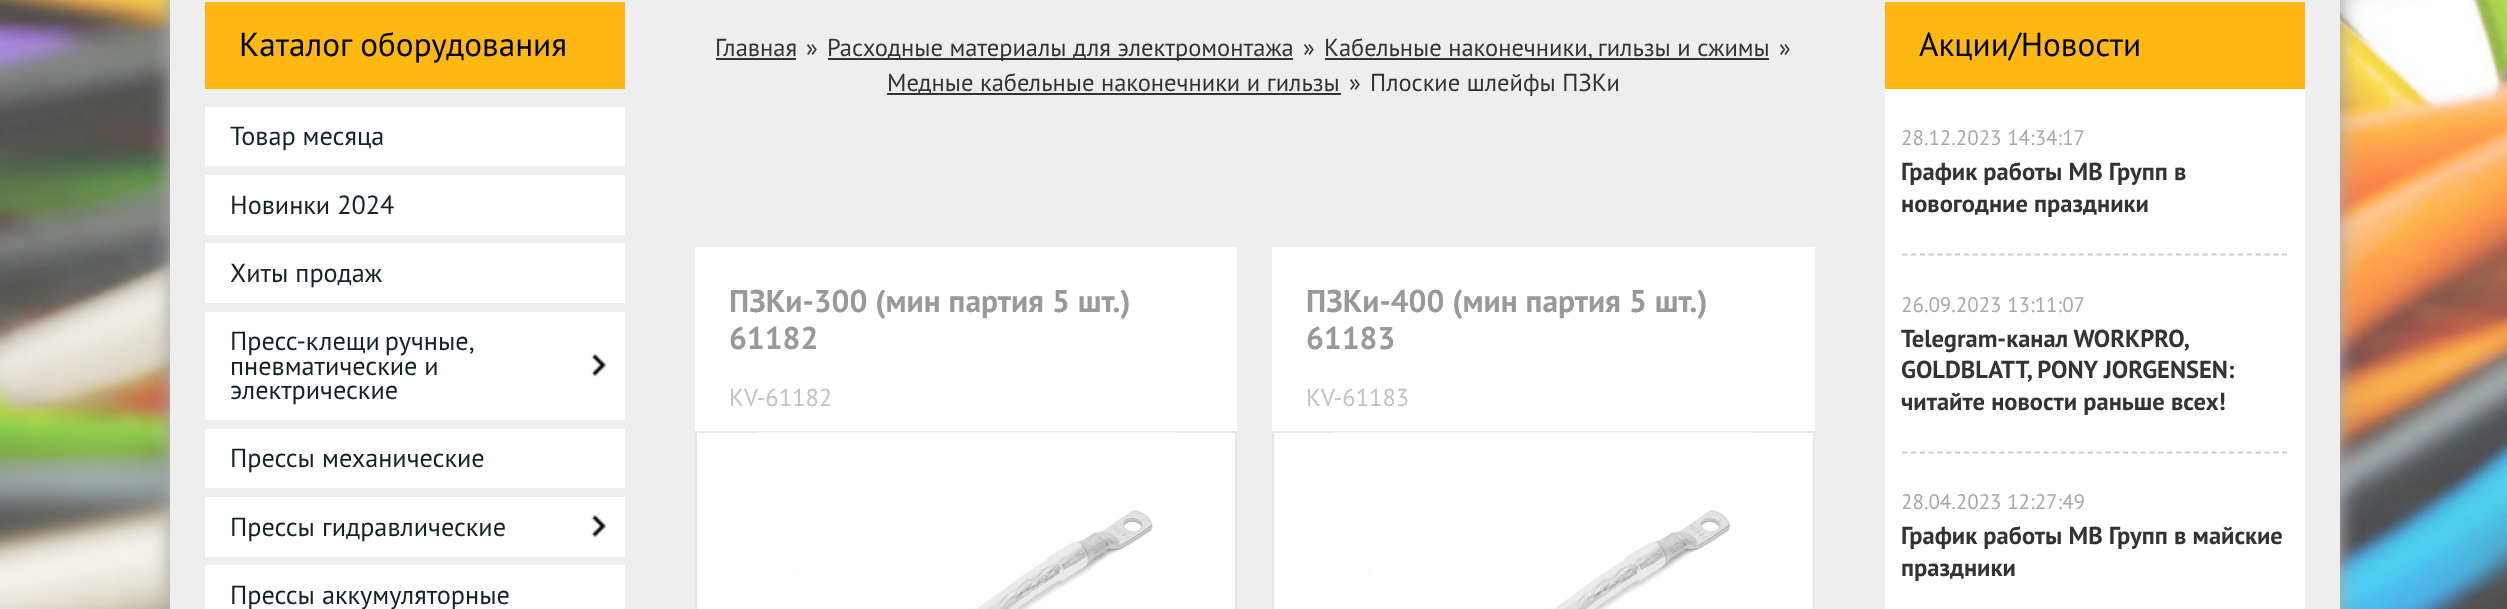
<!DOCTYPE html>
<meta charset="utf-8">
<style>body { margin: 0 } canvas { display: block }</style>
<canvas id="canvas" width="2507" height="609"></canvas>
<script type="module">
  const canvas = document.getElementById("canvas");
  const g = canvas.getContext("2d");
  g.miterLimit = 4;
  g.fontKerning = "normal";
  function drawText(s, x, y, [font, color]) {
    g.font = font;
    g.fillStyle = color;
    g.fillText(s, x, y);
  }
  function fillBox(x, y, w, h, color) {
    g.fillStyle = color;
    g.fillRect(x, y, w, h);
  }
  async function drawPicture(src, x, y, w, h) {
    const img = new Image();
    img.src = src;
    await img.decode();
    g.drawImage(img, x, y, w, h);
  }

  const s1 = ["33.25px PT Sans", "#000000"];
  const s2 = ["26.25px PT Sans", "#132229"];
  const s3 = ["24.5px PT Sans", "#333333"];
  const s4 = ["bold 31.5px PT Sans", "#999999"];
  const s5 = ["24.5px PT Sans", "#C2C2C2"];
  const s6 = ["21px PT Sans", "#A6A9AA"];
  const s7 = ["bold 24.5px PT Sans", "#333333"];

  fillBox(0, 0, 2507, 609, "#FFFFFF");
  await drawPicture("pic1.png", 0, 0, 2507, 609);
  g.fillStyle = "#AAAAAA";
  g.filter = "blur(9px)";
  g.beginPath();
  g.rect(168, -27, 2174, 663);
  g.fill();
  g.filter = "none";
  fillBox(170, 0, 2170, 609, "#EEEEEE");
  fillBox(205, 2, 420, 87, "#FDB813");
  drawText("Каталог оборудования", 239, 56, s1);
  fillBox(205, 107, 420, 59, "#FFFFFF");
  drawText("Товар месяца", 230, 145, s2);
  fillBox(205, 175, 420, 60, "#FFFFFF");
  drawText("Новинки 2024", 230, 214, s2);
  fillBox(205, 243, 420, 60, "#FFFFFF");
  drawText("Хиты продаж", 230, 282, s2);
  fillBox(205, 312, 420, 108, "#FFFFFF");
  g.wordSpacing = "-2px";
  drawText("Пресс-клещи ручные,", 230, 350, s2);
  g.wordSpacing = "0px";
  drawText("пневматические и", 230, 375, s2);
  drawText("электрические", 230, 399, s2);
  await drawPicture("pic2.png", 591, 354, 15, 23);
  fillBox(205, 429, 420, 59, "#FFFFFF");
  drawText("Прессы механические", 230, 467, s2);
  fillBox(205, 497, 420, 60, "#FFFFFF");
  drawText("Прессы гидравлические", 230, 536, s2);
  await drawPicture("pic2.png", 591, 515, 15, 23);
  fillBox(205, 565, 420, 44, "#FFFFFF");
  drawText("Прессы аккумуляторные", 230, 604, s2);
  drawText("Главная", 715, 56, s3);
  fillBox(716, 58, 80, 2, "#333333");
  drawText("»", 806, 56, s3);
  fillBox(828, 58, 465, 2, "#333333");
  drawText("Расходные материалы для электромонтажа", 827, 56, s3);
  drawText("»", 1303, 56, s3);
  fillBox(1325, 58, 444, 2, "#333333");
  drawText("Кабельные наконечники, гильзы и сжимы", 1324, 56, s3);
  drawText("»", 1779, 56, s3);
  fillBox(887, 93, 454, 2, "#333333");
  drawText("Медные кабельные наконечники и гильзы", 887, 91, s3);
  drawText("»", 1349, 91, s3);
  drawText("Плоские шлейфы ПЗКи", 1370, 91, s3);
  fillBox(695, 247, 542, 362, "#FFFFFF");
  drawText("ПЗКи-300 (мин партия 5 шт.)", 729, 312, s4);
  drawText("61182", 729, 349, s4);
  drawText("KV-61182", 729, 406, s5);
  g.strokeStyle = "#E6E6E6";
  g.lineWidth = 2;
  g.strokeRect(696, 432, 540, 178);
  await drawPicture("pic3.png", 756, 432, 420, 177);
  fillBox(1272, 247, 543, 362, "#FFFFFF");
  drawText("ПЗКи-400 (мин партия 5 шт.)", 1306, 312, s4);
  drawText("61183", 1306, 349, s4);
  drawText("KV-61183", 1306, 406, s5);
  g.strokeRect(1273, 432, 541, 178);
  await drawPicture("pic4.png", 1333, 432, 421, 177);
  fillBox(1885, 2, 420, 87, "#FDB813");
  drawText("Акции/Новости", 1919, 56, s1);
  fillBox(1885, 89, 420, 520, "#FFFFFF");
  g.beginPath();
  g.moveTo(1902, 254.5);
  g.lineTo(2287, 254.5);
  g.strokeStyle = "#CCCCCC";
  g.lineWidth = 1.8;
  g.setLineDash([5.25, 3.59]);
  g.stroke();
  drawText("28.12.2023 14:34:17", 1901, 145, s6);
  drawText("График работы МВ Групп в", 1901, 180, s7);
  drawText("новогодние праздники", 1901, 212, s7);
  g.beginPath();
  g.moveTo(1902, 452.5);
  g.lineTo(2287, 452.5);
  g.stroke();
  drawText("26.09.2023 13:11:07", 1901, 312, s6);
  g.wordSpacing = "-1px";
  drawText("Telegram-канал WORKPRO,", 1901, 347, s7);
  g.wordSpacing = "0px";
  drawText("GOLDBLATT, PONY JORGENSEN:", 1901, 378, s7);
  drawText("читайте новости раньше всех!", 1901, 410, s7);
  drawText("28.04.2023 12:27:49", 1901, 509, s6);
  drawText("График работы МВ Групп в майские", 1901, 544, s7);
  drawText("праздники", 1901, 576, s7);
</script>
